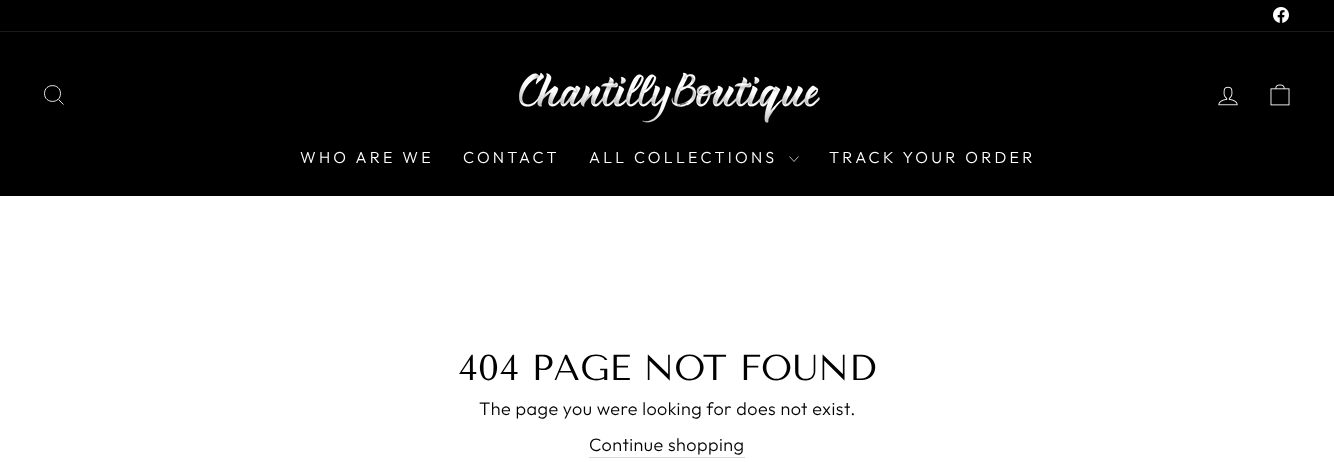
<!DOCTYPE html>
<meta charset="utf-8">
<style>body { margin: 0 } canvas { display: block }</style>
<canvas id="canvas" width="1334" height="462"></canvas>
<script type="module">
  const canvas = document.getElementById("canvas");
  const g = canvas.getContext("2d");
  g.miterLimit = 4;
  g.fontKerning = "normal";
  function drawText(s, x, y, [font, color]) {
    g.font = font;
    g.fillStyle = color;
    g.fillText(s, x, y);
  }
  function fillBox(x, y, w, h, color) {
    g.fillStyle = color;
    g.fillRect(x, y, w, h);
  }
  async function drawPicture(src, x, y, w, h) {
    const img = new Image();
    img.src = src;
    await img.decode();
    g.drawImage(img, x, y, w, h);
  }

  const s1 = ["300 16px Outfit", "#FFFFFF"];
  const s2 = ["36px Tenor Sans", "#000000"];
  const s3 = ["300 18px Outfit", "#000000"];

  fillBox(0, 0, 1334, 462, "#FFFFFF");
  fillBox(0, 0, 1334, 31, "#000000");
  await drawPicture("pic1.png", 1273, 7, 16, 16);
  fillBox(0, 32, 1334, 164, "#000000");
  fillBox(0, 31, 1334, 1, "#1A1A1A");
  g.beginPath();
  g.moveTo(60.5, 93.5);
  g.bezierCurveTo(60.5, 104, 44.5, 104, 44.5, 93.5);
  g.bezierCurveTo(44.5, 83, 60.5, 83, 60.5, 93.5);
  g.closePath();
  g.moveTo(63.5, 104.5);
  g.lineTo(58.5, 99.5);
  g.strokeStyle = "#FFFFFF";
  g.lineWidth = 0.9;
  g.stroke();
  await drawPicture("pic2.png", 519, 72, 301, 51);
  await drawPicture("pic3.png", 1218, 86, 20, 20);
  await drawPicture("pic4.png", 1270, 84, 20, 22);
  g.letterSpacing = "3.25px";
  drawText("WHO ARE WE", 300, 163, s1);
  drawText("CONTACT", 463, 163, s1);
  drawText("ALL COLLECTIONS", 589, 163, s1);
  g.beginPath();
  g.moveTo(789.5, 156.5);
  g.lineTo(794, 161.5);
  g.lineTo(798.5, 156.5);
  g.lineWidth = 0.7;
  g.stroke();
  drawText("TRACK YOUR ORDER", 829, 163, s1);
  g.letterSpacing = "0px";
  drawText("404 PAGE NOT FOUND", 458, 380, s2);
  g.letterSpacing = "0.45px";
  drawText("The page you were looking for does not exist.", 479, 415, s3);
  fillBox(589, 457, 156, 1, "#D9D9D9");
  drawText("Continue shopping", 589, 451, s3);
</script>
